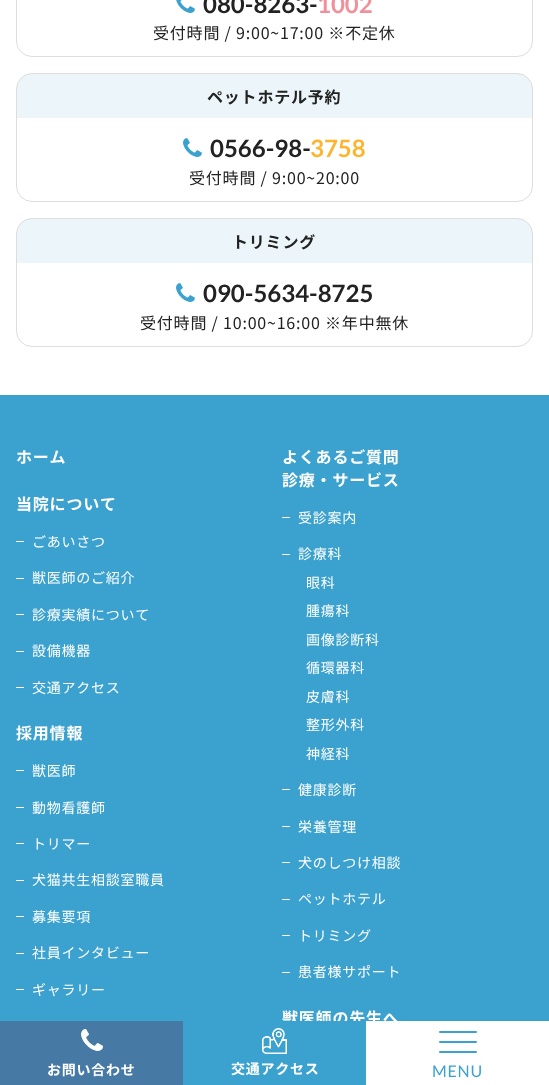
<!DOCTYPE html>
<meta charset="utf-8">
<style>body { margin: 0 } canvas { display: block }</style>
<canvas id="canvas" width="549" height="1085"></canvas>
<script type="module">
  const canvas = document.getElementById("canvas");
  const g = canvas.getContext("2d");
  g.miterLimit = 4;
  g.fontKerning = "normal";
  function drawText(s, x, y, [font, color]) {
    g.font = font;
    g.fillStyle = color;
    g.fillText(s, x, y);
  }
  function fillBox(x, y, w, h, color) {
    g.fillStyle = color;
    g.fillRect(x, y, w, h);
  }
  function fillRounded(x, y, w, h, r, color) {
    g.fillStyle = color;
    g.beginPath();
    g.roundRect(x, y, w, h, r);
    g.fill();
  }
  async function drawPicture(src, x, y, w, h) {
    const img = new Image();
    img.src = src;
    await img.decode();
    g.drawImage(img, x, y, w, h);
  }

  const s1 = ["bold 24px Lato", "#222222"];
  const s2 = ["bold 24px Lato", "#EF909A"];
  const s3 = ["16px Noto Sans JP", "#222222"];
  const s4 = ["bold 16px Noto Sans JP", "#222222"];
  const s5 = ["bold 24px Lato", "#FDB52F"];
  const s6 = ["bold 16px Noto Sans JP", "#FFFFFF"];
  const s7 = ["14px Noto Sans JP", "#FFFFFF"];
  const s8 = ["bold 14px Noto Sans JP", "#FFFFFF"];
  const s9 = ["16px Lato", "#3BA1CE"];

  fillBox(0, 0, 549, 1085, "#FFFFFF");
  g.beginPath();
  g.roundRect(16.5, -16.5, 516, 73, 15.5);
  g.strokeStyle = "#DDDDDD";
  g.stroke();
  await drawPicture("pic1.png", 176, 0, 19, 13);
  drawText("080-8263-", 203, 13, s1);
  drawText("1002", 317, 13, s2);
  g.letterSpacing = "0.8px";
  drawText("受付時間 / 9:00~17:00 ※不定休", 153, 39, s3);
  g.beginPath();
  g.roundRect(16.5, 73.5, 516, 128, 15.5);
  g.stroke();
  g.fillStyle = "rgba(59, 161, 206, 0.1)";
  g.beginPath();
  g.roundRect(17, 74, 515, 44, [15, 15, 0, 0]);
  g.fill();
  drawText("ペットホテル予約", 207, 103, s4);
  await drawPicture("pic2.png", 183, 138, 19, 19);
  g.letterSpacing = "0px";
  drawText("0566-98-", 210, 157, s1);
  drawText("3758", 310, 157, s5);
  g.letterSpacing = "0.8px";
  drawText("受付時間 / 9:00~20:00", 189, 184, s3);
  g.beginPath();
  g.roundRect(16.5, 218.5, 516, 128, 15.5);
  g.stroke();
  g.fillStyle = "rgba(59, 161, 206, 0.1)";
  g.beginPath();
  g.roundRect(17, 219, 515, 44, [15, 15, 0, 0]);
  g.fill();
  drawText("トリミング", 232, 248, s4);
  await drawPicture("pic2.png", 176, 283, 19, 19);
  g.letterSpacing = "0px";
  drawText("090-5634-8725", 203, 302, s1);
  g.letterSpacing = "0.8px";
  drawText("受付時間 / 10:00~16:00 ※年中無休", 140, 329, s3);
  fillBox(0, 395, 549, 626, "#3BA1CE");
  drawText("よくあるご質問", 282, 463, s6);
  drawText("採用情報", 16, 739, s6);
  fillBox(16, 770, 8, 1, "#FFFFFF");
  g.letterSpacing = "0.75px";
  drawText("獣医師", 32, 776, s7);
  fillBox(16, 807, 8, 1, "#FFFFFF");
  drawText("動物看護師", 32, 813, s7);
  fillBox(16, 843, 8, 1, "#FFFFFF");
  drawText("トリマー", 32, 849, s7);
  fillBox(16, 880, 8, 1, "#FFFFFF");
  drawText("犬猫共生相談室職員", 32, 885, s7);
  fillBox(16, 916, 8, 1, "#FFFFFF");
  drawText("募集要項", 32, 922, s7);
  fillBox(16, 953, 8, 1, "#FFFFFF");
  drawText("社員インタビュー", 32, 958, s7);
  fillBox(16, 989, 8, 1, "#FFFFFF");
  drawText("ギャラリー", 32, 995, s7);
  g.letterSpacing = "0.8px";
  drawText("ホーム", 16, 463, s6);
  drawText("当院について", 16, 510, s6);
  fillBox(16, 541, 8, 1, "#FFFFFF");
  g.letterSpacing = "0.75px";
  drawText("ごあいさつ", 32, 547, s7);
  fillBox(16, 578, 8, 1, "#FFFFFF");
  drawText("獣医師のご紹介", 32, 583, s7);
  fillBox(16, 614, 8, 1, "#FFFFFF");
  drawText("診療実績について", 32, 620, s7);
  fillBox(16, 651, 8, 1, "#FFFFFF");
  drawText("設備機器", 32, 656, s7);
  fillBox(16, 687, 8, 1, "#FFFFFF");
  drawText("交通アクセス", 32, 693, s7);
  g.letterSpacing = "0.8px";
  drawText("診療・サービス", 282, 486, s6);
  fillBox(282, 517, 8, 1, "#FFFFFF");
  g.letterSpacing = "0.75px";
  drawText("受診案内", 298, 523, s7);
  fillBox(282, 554, 8, 1, "#FFFFFF");
  drawText("診療科", 298, 559, s7);
  drawText("眼科", 306, 588, s7);
  drawText("腫瘍科", 306, 616, s7);
  drawText("画像診断科", 306, 645, s7);
  drawText("循環器科", 306, 673, s7);
  drawText("皮膚科", 306, 702, s7);
  drawText("整形外科", 306, 730, s7);
  drawText("神経科", 306, 759, s7);
  fillBox(282, 789, 8, 1, "#FFFFFF");
  drawText("健康診断", 298, 795, s7);
  fillBox(282, 826, 8, 1, "#FFFFFF");
  drawText("栄養管理", 298, 832, s7);
  fillBox(282, 862, 8, 1, "#FFFFFF");
  drawText("犬のしつけ相談", 298, 868, s7);
  fillBox(282, 899, 8, 1, "#FFFFFF");
  drawText("ペットホテル", 298, 904, s7);
  fillBox(282, 935, 8, 1, "#FFFFFF");
  drawText("トリミング", 298, 941, s7);
  fillBox(282, 972, 8, 1, "#FFFFFF");
  drawText("患者様サポート", 298, 977, s7);
  g.letterSpacing = "0.8px";
  drawText("獣医師の先生へ", 282, 1024, s6);
  fillBox(0, 1021, 183, 64, "#467AA5");
  await drawPicture("pic3.png", 81, 1029, 22, 22);
  g.letterSpacing = "0.75px";
  drawText("お問い合わせ", 47, 1075, s8);
  fillBox(183, 1021, 183, 64, "#3BA1CE");
  await drawPicture("pic4.png", 262, 1028, 25, 26);
  drawText("交通アクセス", 231, 1074, s8);
  fillRounded(439, 1031, 38, 2, 1, "#3BA1CE");
  fillRounded(439, 1041, 38, 2, 1, "#3BA1CE");
  fillRounded(439, 1051, 38, 2, 1, "#3BA1CE");
  g.letterSpacing = "0.8px";
  drawText("MENU", 432, 1077, s9);
</script>
